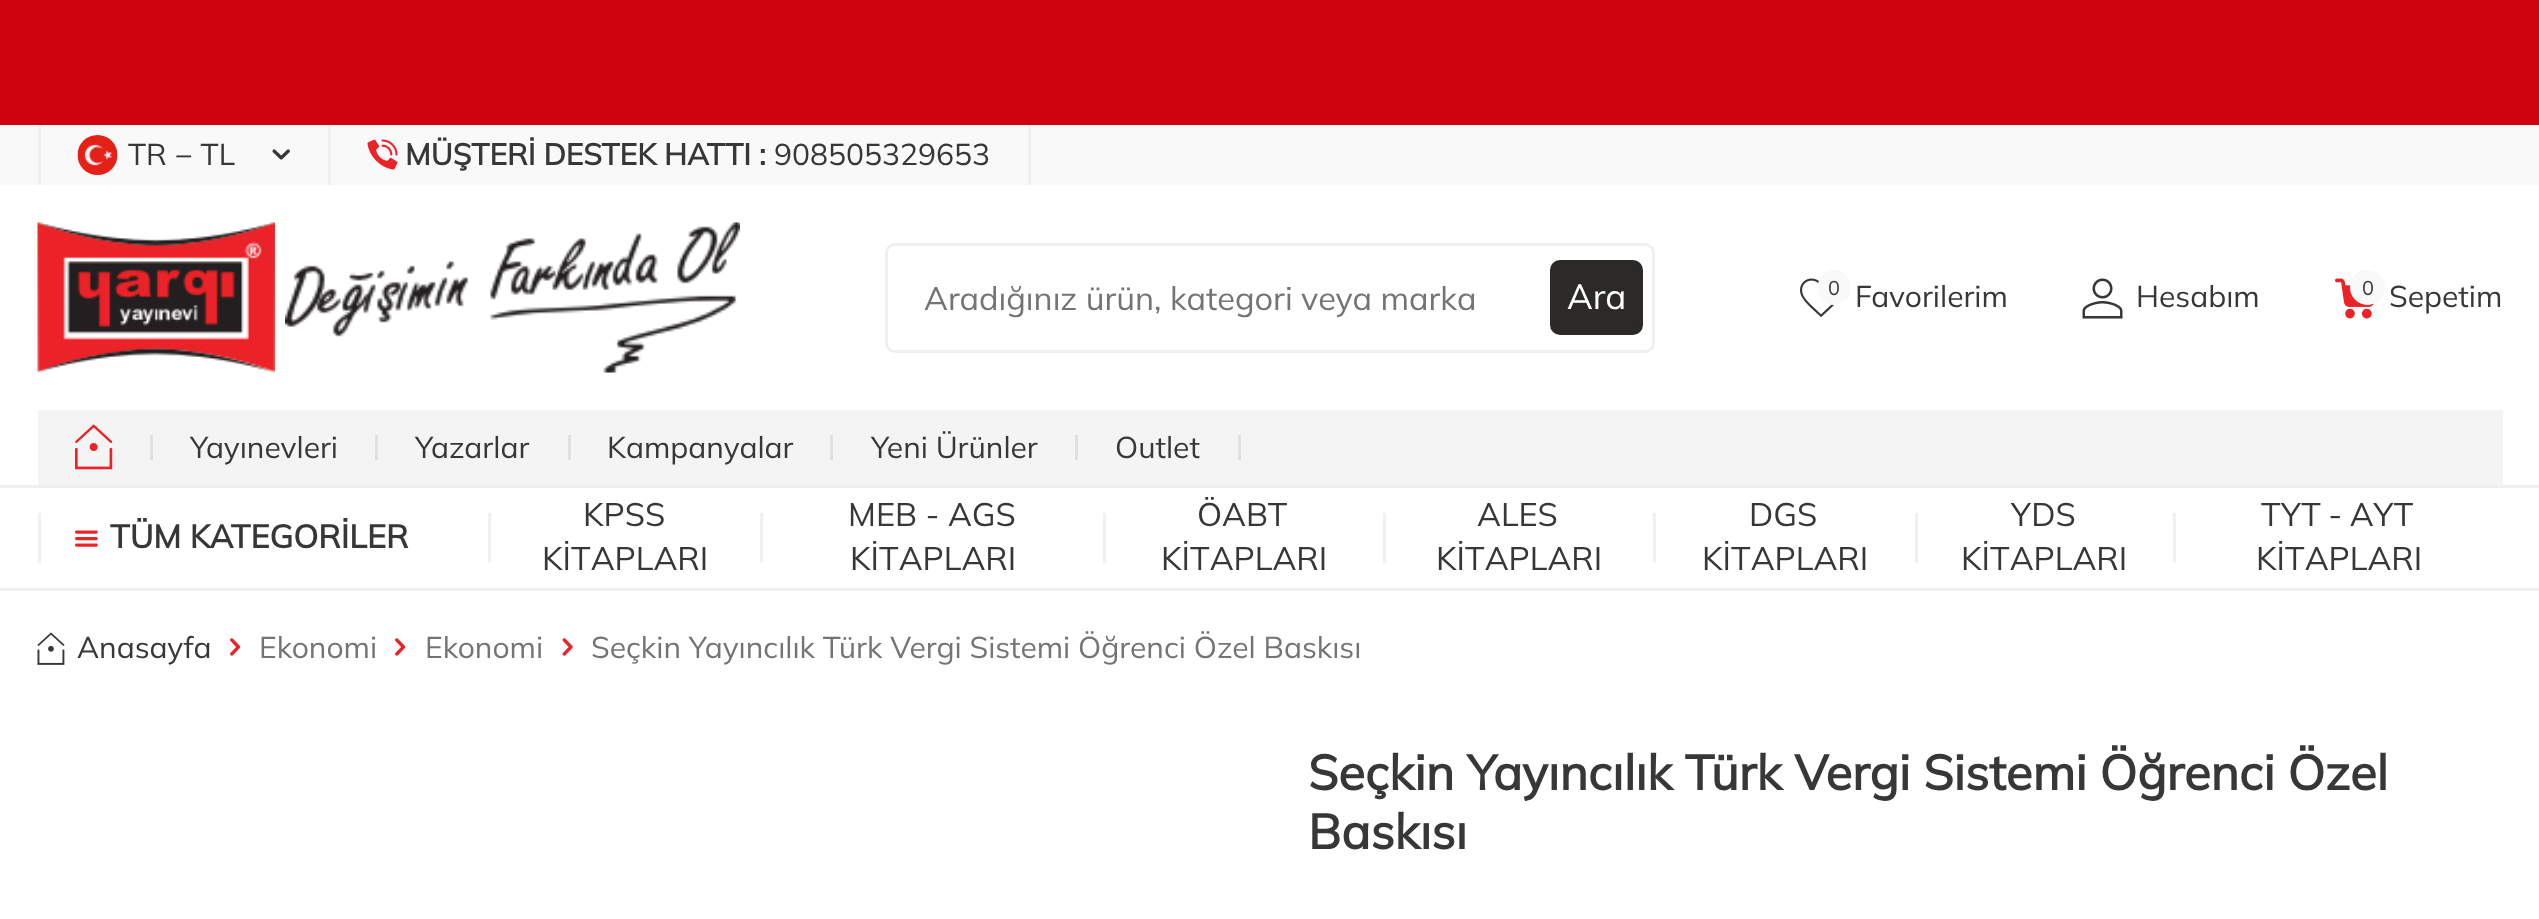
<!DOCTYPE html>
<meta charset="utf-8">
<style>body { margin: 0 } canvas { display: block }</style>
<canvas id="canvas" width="2539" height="919"></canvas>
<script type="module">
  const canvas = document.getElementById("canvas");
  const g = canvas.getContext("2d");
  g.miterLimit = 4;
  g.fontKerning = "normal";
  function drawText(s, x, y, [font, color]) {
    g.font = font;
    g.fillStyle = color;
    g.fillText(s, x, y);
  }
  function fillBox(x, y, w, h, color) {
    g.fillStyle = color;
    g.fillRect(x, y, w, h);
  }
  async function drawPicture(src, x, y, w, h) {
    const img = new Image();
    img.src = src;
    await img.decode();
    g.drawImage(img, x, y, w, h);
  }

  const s1 = ["200 30px Mulish", "#373738"];
  const s2 = ["bold 30px Mulish", "#373738"];
  const s3 = ["200 32.5px Mulish", "#747474"];
  const s4 = ["200 35px Mulish", "#FFFFFF"];
  const s5 = ["200 20px Mulish", "#373738"];
  const s6 = ["bold 32.5px Mulish", "#373738"];
  const s7 = ["200 32.5px Mulish", "#373738"];
  const s8 = ["200 30px Mulish", "#747474"];
  const s9 = ["bold 48.75px Mulish", "#373738"];

  fillBox(0, 0, 2539, 919, "#FFFFFF");
  fillBox(0, 0, 2539, 125, "#CD040E");
  fillBox(0, 125, 2539, 60, "#F9F9F9");
  fillBox(38, 125, 3, 60, "#F0F0F0");
  fillBox(328, 125, 3, 60, "#F0F0F0");
  await drawPicture("pic1.png", 77, 135, 41, 40);
  drawText("TR − TL", 128, 165, s1);
  await drawPicture("pic2.png", 272, 149, 18, 11);
  fillBox(1028, 125, 3, 60, "#F0F0F0");
  await drawPicture("pic3.png", 367, 139, 31, 31);
  drawText("MÜŞTERİ DESTEK HATTI :", 405, 165, s2);
  drawText("908505329653", 774, 165, s1);
  await drawPicture("pic4.png", 37, 222, 238, 151);
  await drawPicture("pic5.png", 285, 222, 455, 151);
  g.beginPath();
  g.roundRect(886.5, 244.5, 767, 107, 8.5);
  g.strokeStyle = "#F0F0F0";
  g.lineWidth = 3;
  g.stroke();
  drawText("Aradığınız ürün, kategori veya marka", 924, 310, s3);
  g.fillStyle = "#2C2A28";
  g.beginPath();
  g.roundRect(1551.5, 261.5, 90, 72, 8.5);
  g.fill();
  g.strokeStyle = "#2C2A28";
  g.stroke();
  drawText("Ara", 1567, 309, s4);
  await drawPicture("pic6.png", 1800, 278, 35, 39);
  g.fillStyle = "#F9F9F9";
  g.beginPath();
  g.roundRect(1819.5, 271.5, 29, 32, 14.5);
  g.fill();
  g.strokeStyle = "#F9F9F9";
  g.stroke();
  drawText("0", 1828, 295, s5);
  drawText("Favorilerim", 1855, 307, s1);
  await drawPicture("pic7.png", 2082, 278, 41, 41);
  drawText("Hesabım", 2136, 307, s1);
  await drawPicture("pic8.png", 2335, 278, 39, 41);
  g.fillStyle = "#F9F9F9";
  g.beginPath();
  g.arc(2367.5, 287.5, 16, 0, Math.PI * 2);
  g.fill();
  g.stroke();
  drawText("0", 2362, 295, s5);
  drawText("Sepetim", 2389, 307, s1);
  fillBox(0, 485, 2539, 3, "#F0F0F0");
  fillBox(38, 410, 2465, 75, "#F4F4F4");
  await drawPicture("pic9.png", 75, 424, 38, 46);
  fillBox(150, 435, 3, 25, "#E0E0E0");
  drawText("Yayınevleri", 190, 458, s1);
  fillBox(375, 435, 3, 25, "#E0E0E0");
  drawText("Yazarlar", 415, 458, s1);
  fillBox(568, 435, 3, 25, "#E0E0E0");
  drawText("Kampanyalar", 607, 458, s1);
  fillBox(830, 435, 3, 25, "#E0E0E0");
  drawText("Yeni Ürünler", 871, 458, s1);
  fillBox(1075, 435, 3, 25, "#E0E0E0");
  drawText("Outlet", 1115, 458, s1);
  fillBox(1238, 435, 3, 25, "#E0E0E0");
  fillBox(0, 588, 2539, 3, "#F0F0F0");
  fillBox(38, 513, 3, 50, "#F0F0F0");
  await drawPicture("pic10.png", 75, 530, 23, 17);
  drawText("TÜM KATEGORİLER", 110, 548, s6);
  fillBox(488, 513, 3, 50, "#F0F0F0");
  drawText("KPSS", 583, 526, s7);
  drawText("KİTAPLARI", 542, 570, s7);
  fillBox(760, 513, 3, 50, "#F0F0F0");
  drawText("MEB - AGS", 848, 526, s7);
  drawText("KİTAPLARI", 850, 570, s7);
  fillBox(1103, 513, 3, 50, "#F0F0F0");
  drawText("ÖABT", 1197, 526, s7);
  drawText("KİTAPLARI", 1161, 570, s7);
  fillBox(1383, 513, 3, 50, "#F0F0F0");
  drawText("ALES", 1477, 526, s7);
  drawText("KİTAPLARI", 1436, 570, s7);
  fillBox(1653, 513, 3, 50, "#F0F0F0");
  drawText("DGS", 1749, 526, s7);
  drawText("KİTAPLARI", 1702, 570, s7);
  fillBox(1915, 513, 3, 50, "#F0F0F0");
  drawText("YDS", 2011, 526, s7);
  drawText("KİTAPLARI", 1961, 570, s7);
  fillBox(2173, 513, 3, 50, "#F0F0F0");
  g.wordSpacing = "-1px";
  drawText("TYT - AYT", 2261, 526, s7);
  g.wordSpacing = "0px";
  drawText("KİTAPLARI", 2256, 570, s7);
  await drawPicture("pic11.png", 37, 632, 28, 33);
  drawText("Anasayfa", 77, 658, s1);
  await drawPicture("pic12.png", 230, 638, 11, 18);
  drawText("Ekonomi", 259, 658, s8);
  await drawPicture("pic12.png", 395, 638, 11, 18);
  drawText("Ekonomi", 425, 658, s8);
  await drawPicture("pic13.png", 562, 638, 11, 18);
  drawText("Seçkin Yayıncılık Türk Vergi Sistemi Öğrenci Özel Baskısı", 591, 658, s8);
  drawText("Seçkin Yayıncılık Türk Vergi Sistemi Öğrenci Özel", 1308, 790, s9);
  drawText("Baskısı", 1308, 849, s9);
</script>
